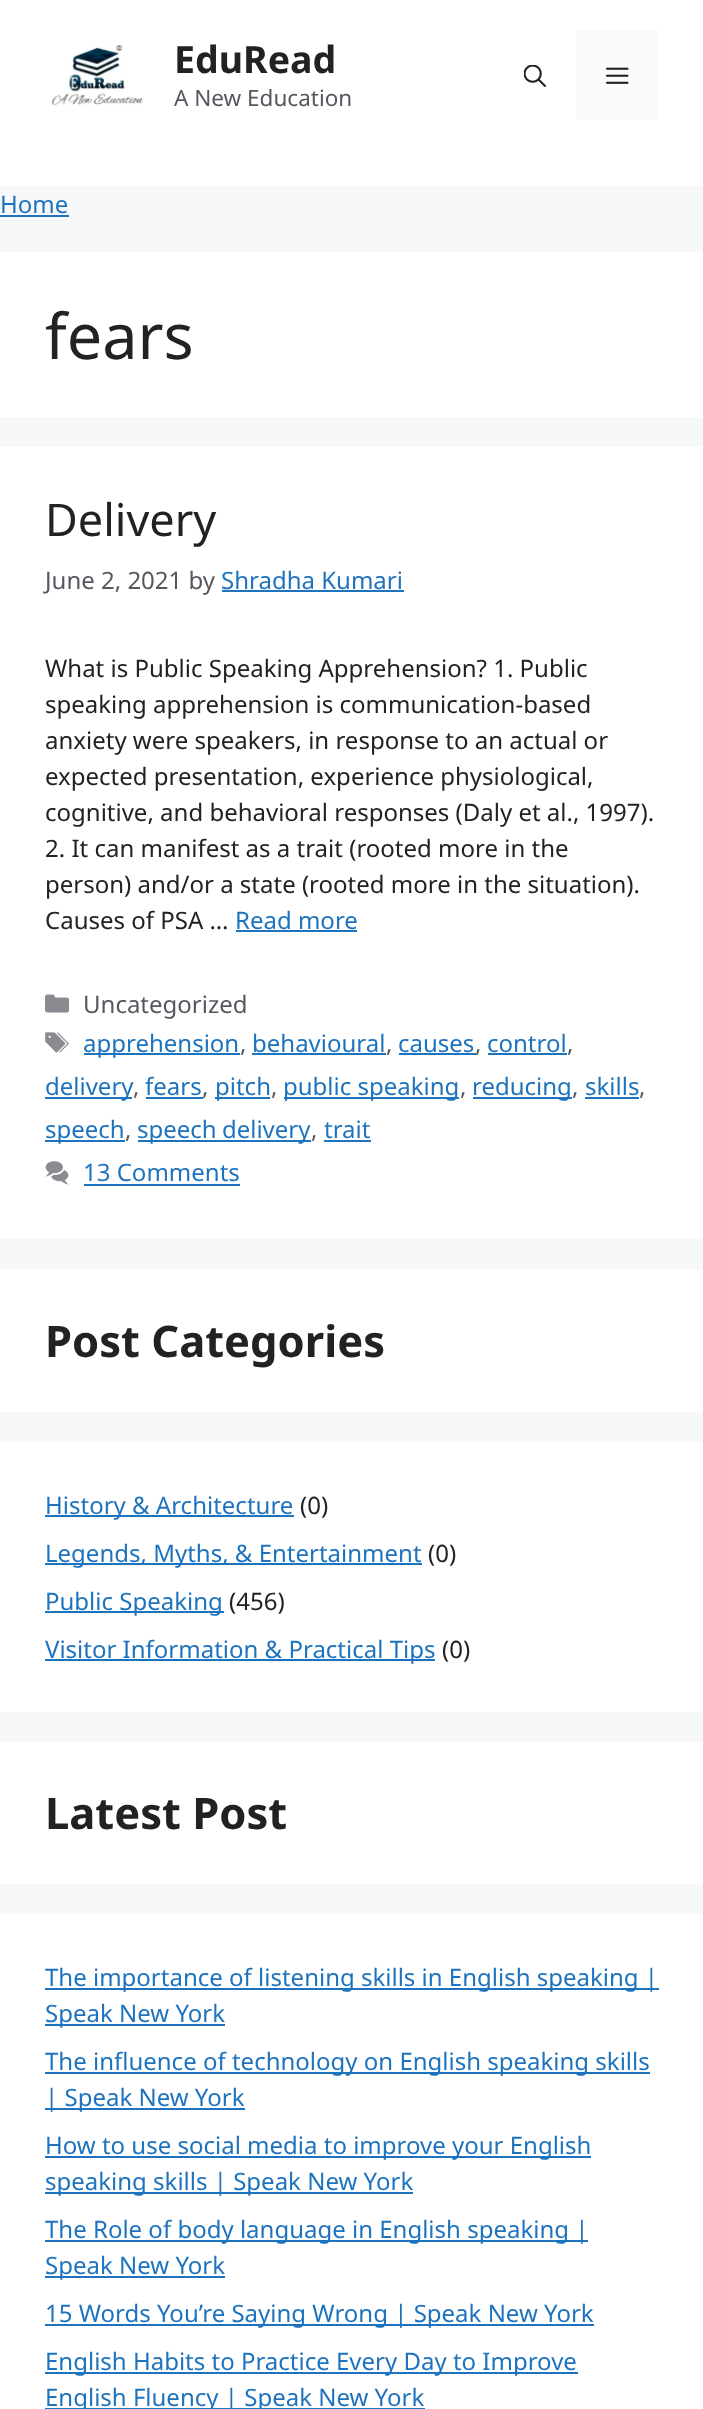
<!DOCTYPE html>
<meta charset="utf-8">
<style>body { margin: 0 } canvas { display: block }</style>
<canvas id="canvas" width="703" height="2409"></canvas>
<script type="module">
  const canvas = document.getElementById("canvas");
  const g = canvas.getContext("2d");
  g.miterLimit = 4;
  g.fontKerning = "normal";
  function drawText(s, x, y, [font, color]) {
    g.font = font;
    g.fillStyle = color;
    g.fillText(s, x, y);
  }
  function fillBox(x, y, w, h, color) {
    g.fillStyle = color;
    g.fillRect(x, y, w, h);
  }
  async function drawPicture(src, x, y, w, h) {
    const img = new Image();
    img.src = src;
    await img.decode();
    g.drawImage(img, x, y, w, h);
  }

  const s1 = ["bold 37.5px Noto Sans", "#222222"];
  const s2 = ["22.5px Noto Sans", "#575760"];
  const s3 = ["24px Noto Sans", "#1E73BE"];
  const s4 = ["63px Noto Sans", "#222222"];
  const s5 = ["45px Noto Sans", "#222222"];
  const s6 = ["24px Noto Sans", "#575760"];
  const s7 = ["24px Noto Sans", "#222222"];
  const s8 = ["bold 43.5px Noto Sans", "#222222"];

  fillBox(0, 0, 703, 2409, "#F7F8F9");
  fillBox(0, 0, 703, 186, "#FFFFFF");
  await drawPicture("pic1.png", 51, 44, 92, 62);
  drawText("EduRead", 174, 73, s1);
  drawText("A New Education", 174, 106, s2);
  await drawPicture("pic2.png", 524, 65, 22, 22);
  fillBox(576, 30, 83, 90, "#FAFAFA");
  await drawPicture("pic3.png", 606, 67, 23, 17);
  drawText("Home", 0, 213, s3);
  fillBox(0, 215, 69, 2, "#1E73BE");
  fillBox(0, 252, 703, 165, "#FFFFFF");
  drawText("fears", 45, 359, s4);
  fillBox(0, 447, 703, 792, "#FFFFFF");
  drawText("Delivery", 45, 536, s5);
  drawText("June 2, 2021 by", 45, 589, s6);
  drawText("Shradha Kumari", 221, 589, s3);
  fillBox(222, 590, 182, 2, "#1E73BE");
  drawText("What is Public Speaking Apprehension? 1. Public", 45, 677, s7);
  drawText("speaking apprehension is communication-based", 45, 713, s7);
  drawText("anxiety were speakers, in response to an actual or", 45, 749, s7);
  drawText("expected presentation, experience physiological,", 45, 785, s7);
  drawText("cognitive, and behavioral responses (Daly et al., 1997).", 45, 821, s7);
  drawText("2. It can manifest as a trait (rooted more in the", 45, 857, s7);
  drawText("person) and/or a state (rooted more in the situation).", 45, 893, s7);
  drawText("Causes of PSA …", 45, 929, s7);
  drawText("Read more", 235, 929, s3);
  fillBox(236, 930, 121, 2, "#1E73BE");
  await drawPicture("pic4.png", 45, 994, 24, 19);
  drawText("Uncategorized", 83, 1013, s6);
  await drawPicture("pic5.png", 45, 1032, 24, 21);
  fillBox(84, 1053, 156, 2, "#1E73BE");
  drawText("apprehension", 83, 1052, s3);
  drawText(",", 240, 1052, s6);
  drawText("behavioural", 252, 1052, s3);
  fillBox(252, 1053, 134, 2, "#1E73BE");
  drawText(",", 386, 1052, s6);
  drawText("causes", 398, 1052, s3);
  fillBox(399, 1053, 77, 2, "#1E73BE");
  drawText(",", 475, 1052, s6);
  drawText("control", 487, 1052, s3);
  fillBox(488, 1053, 79, 2, "#1E73BE");
  drawText(",", 567, 1052, s6);
  fillBox(45, 1097, 87, 2, "#1E73BE");
  drawText("delivery", 45, 1095, s3);
  drawText(",", 133, 1095, s6);
  drawText("fears", 145, 1095, s3);
  fillBox(146, 1097, 57, 2, "#1E73BE");
  drawText(",", 202, 1095, s6);
  fillBox(215, 1097, 55, 2, "#1E73BE");
  drawText("pitch", 215, 1095, s3);
  drawText(",", 271, 1095, s6);
  fillBox(284, 1097, 175, 2, "#1E73BE");
  drawText("public speaking", 283, 1095, s3);
  drawText(",", 460, 1095, s6);
  fillBox(473, 1097, 99, 2, "#1E73BE");
  drawText("reducing", 472, 1095, s3);
  drawText(",", 572, 1095, s6);
  drawText("skills", 585, 1095, s3);
  fillBox(585, 1097, 54, 2, "#1E73BE");
  drawText(",", 639, 1095, s6);
  fillBox(45, 1140, 80, 2, "#1E73BE");
  drawText("speech", 45, 1138, s3);
  drawText(",", 125, 1138, s6);
  fillBox(138, 1140, 173, 2, "#1E73BE");
  g.wordSpacing = "-1px";
  drawText("speech delivery", 137, 1138, s3);
  g.wordSpacing = "0px";
  drawText(",", 311, 1138, s6);
  drawText("trait", 324, 1138, s3);
  fillBox(324, 1140, 47, 2, "#1E73BE");
  await drawPicture("pic6.png", 45, 1161, 24, 24);
  drawText("13 Comments", 83, 1181, s3);
  fillBox(84, 1184, 156, 2, "#1E73BE");
  fillBox(0, 1269, 703, 143, "#FFFFFF");
  drawText("Post Categories", 45, 1357, s8);
  fillBox(0, 1442, 703, 270, "#FFFFFF");
  fillBox(45, 1515, 249, 2, "#1E73BE");
  drawText("History & Architecture", 45, 1514, s3);
  drawText("(0)", 300, 1514, s7);
  fillBox(45, 1563, 377, 2, "#1E73BE");
  drawText("Legends, Myths, & Entertainment", 45, 1562, s3);
  drawText("(0)", 428, 1562, s7);
  fillBox(45, 1611, 179, 2, "#1E73BE");
  drawText("Public Speaking", 45, 1610, s3);
  drawText("(456)", 229, 1610, s7);
  fillBox(45, 1659, 390, 2, "#1E73BE");
  drawText("Visitor Information & Practical Tips", 45, 1658, s3);
  drawText("(0)", 442, 1658, s7);
  fillBox(0, 1742, 703, 142, "#FFFFFF");
  drawText("Latest Post", 45, 1829, s8);
  fillBox(0, 1914, 703, 495, "#FFFFFF");
  fillBox(45, 1988, 614, 2, "#1E73BE");
  drawText("The importance of listening skills in English speaking |", 45, 1986, s3);
  fillBox(45, 2024, 180, 2, "#1E73BE");
  drawText("Speak New York", 45, 2022, s3);
  fillBox(45, 2072, 605, 2, "#1E73BE");
  drawText("The influence of technology on English speaking skills", 45, 2070, s3);
  fillBox(45, 2108, 200, 2, "#1E73BE");
  drawText("| Speak New York", 45, 2106, s3);
  fillBox(45, 2156, 546, 2, "#1E73BE");
  drawText("How to use social media to improve your English", 45, 2154, s3);
  fillBox(45, 2192, 368, 2, "#1E73BE");
  drawText("speaking skills | Speak New York", 45, 2190, s3);
  fillBox(45, 2240, 543, 2, "#1E73BE");
  drawText("The Role of body language in English speaking |", 45, 2238, s3);
  fillBox(45, 2276, 180, 2, "#1E73BE");
  drawText("Speak New York", 45, 2274, s3);
  fillBox(45, 2324, 549, 2, "#1E73BE");
  drawText("15 Words You’re Saying Wrong | Speak New York", 45, 2322, s3);
  fillBox(45, 2372, 533, 2, "#1E73BE");
  drawText("English Habits to Practice Every Day to Improve", 45, 2370, s3);
  fillBox(45, 2408, 380, 1, "#1E73BE");
  drawText("English Fluency | Speak New York", 45, 2406, s3);
</script>
